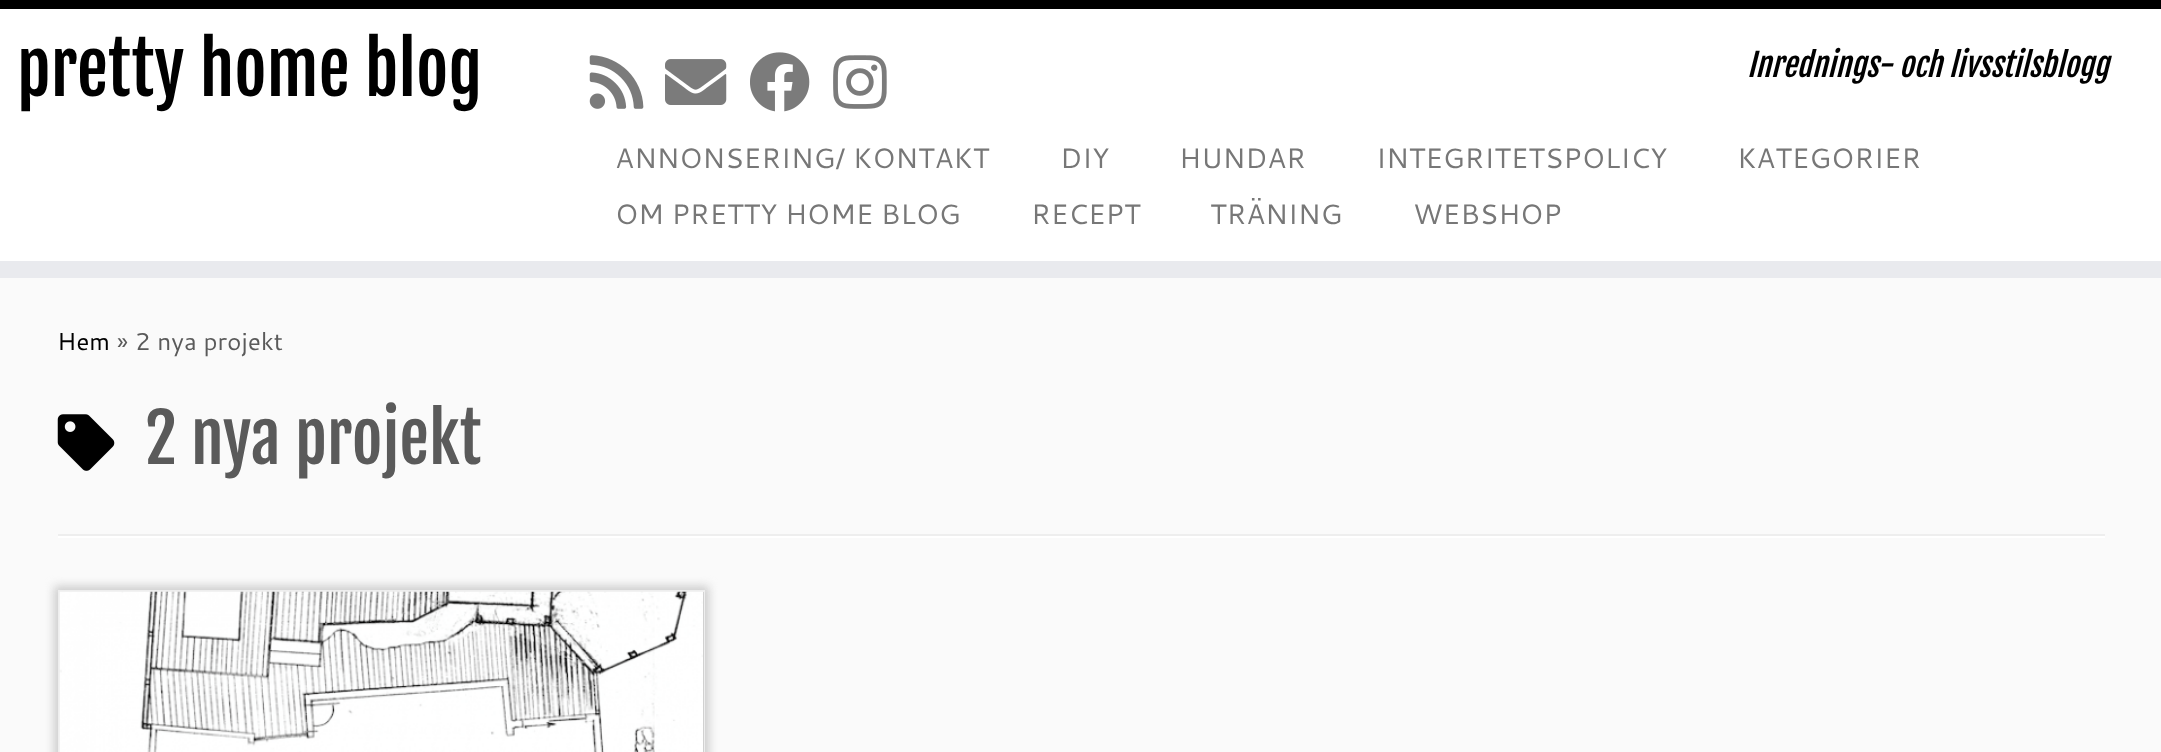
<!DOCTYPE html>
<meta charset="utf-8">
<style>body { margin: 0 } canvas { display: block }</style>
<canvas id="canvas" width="2161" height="752"></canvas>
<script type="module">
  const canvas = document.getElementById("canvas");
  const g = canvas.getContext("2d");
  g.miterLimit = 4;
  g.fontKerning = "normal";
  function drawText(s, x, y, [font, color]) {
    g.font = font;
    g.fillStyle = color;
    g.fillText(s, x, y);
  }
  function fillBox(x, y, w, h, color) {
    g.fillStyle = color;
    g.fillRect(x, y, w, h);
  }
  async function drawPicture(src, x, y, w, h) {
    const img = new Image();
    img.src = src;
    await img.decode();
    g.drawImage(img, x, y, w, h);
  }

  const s1 = ["70px Fjalla One", "#000000"];
  const s2 = ["italic 31.5px Fjalla One", "#000000"];
  const s3 = ["28px Cantarell", "#777777"];
  const s4 = ["24.5px Cantarell", "#000000"];
  const s5 = ["24.5px Cantarell", "#5A5A5A"];
  const s6 = ["66.5px Fjalla One", "#5A5A5A"];

  fillBox(0, 0, 2161, 752, "#FAFAFA");
  fillBox(0, 9, 2161, 252, "#FFFFFF");
  fillBox(0, 0, 2161, 9, "#000000");
  fillBox(0, 261, 2161, 17, "#E9EAEE");
  drawText("pretty home blog", 17, 96, s1);
  await drawPicture("pic1.png", 589, 55, 55, 54);
  await drawPicture("pic2.png", 665, 59, 62, 46);
  await drawPicture("pic3.png", 750, 52, 60, 60);
  await drawPicture("pic4.png", 833, 55, 54, 54);
  drawText("Inrednings- och livsstilsblogg", 1747, 77, s2);
  drawText("ANNONSERING/ KONTAKT", 615, 168, s3);
  drawText("DIY", 1060, 168, s3);
  drawText("HUNDAR", 1179, 168, s3);
  drawText("INTEGRITETSPOLICY", 1376, 168, s3);
  drawText("KATEGORIER", 1737, 168, s3);
  drawText("OM PRETTY HOME BLOG", 615, 224, s3);
  drawText("RECEPT", 1031, 224, s3);
  drawText("TRÄNING", 1210, 224, s3);
  drawText("WEBSHOP", 1413, 224, s3);
  drawText("Hem", 57, 350, s4);
  drawText("» 2 nya projekt", 117, 350, s5);
  await drawPicture("pic5.png", 57, 414, 58, 57);
  drawText("2 nya projekt", 145, 464, s6);
  fillBox(58, 534, 2047, 2, "#EEEEEE");
  fillBox(58, 536, 2047, 2, "#FFFFFF");
  g.fillStyle = "#CCCCCC";
  g.filter = "blur(5px)";
  g.beginPath();
  g.rect(54, 586, 655, 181);
  g.fill();
  g.filter = "none";
  fillBox(58, 590, 647, 2, "#EEEEEE");
  g.beginPath();
  g.moveTo(705, 590);
  g.lineTo(705, 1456);
  g.lineTo(704, 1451);
  g.lineTo(704, 592);
  g.closePath();
  g.fill();
  g.beginPath();
  g.moveTo(58, 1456);
  g.lineTo(58, 590);
  g.lineTo(60, 592);
  g.lineTo(60, 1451);
  g.closePath();
  g.fill();
  await drawPicture("pic6.png", 59, 591, 644, 161);
</script>
